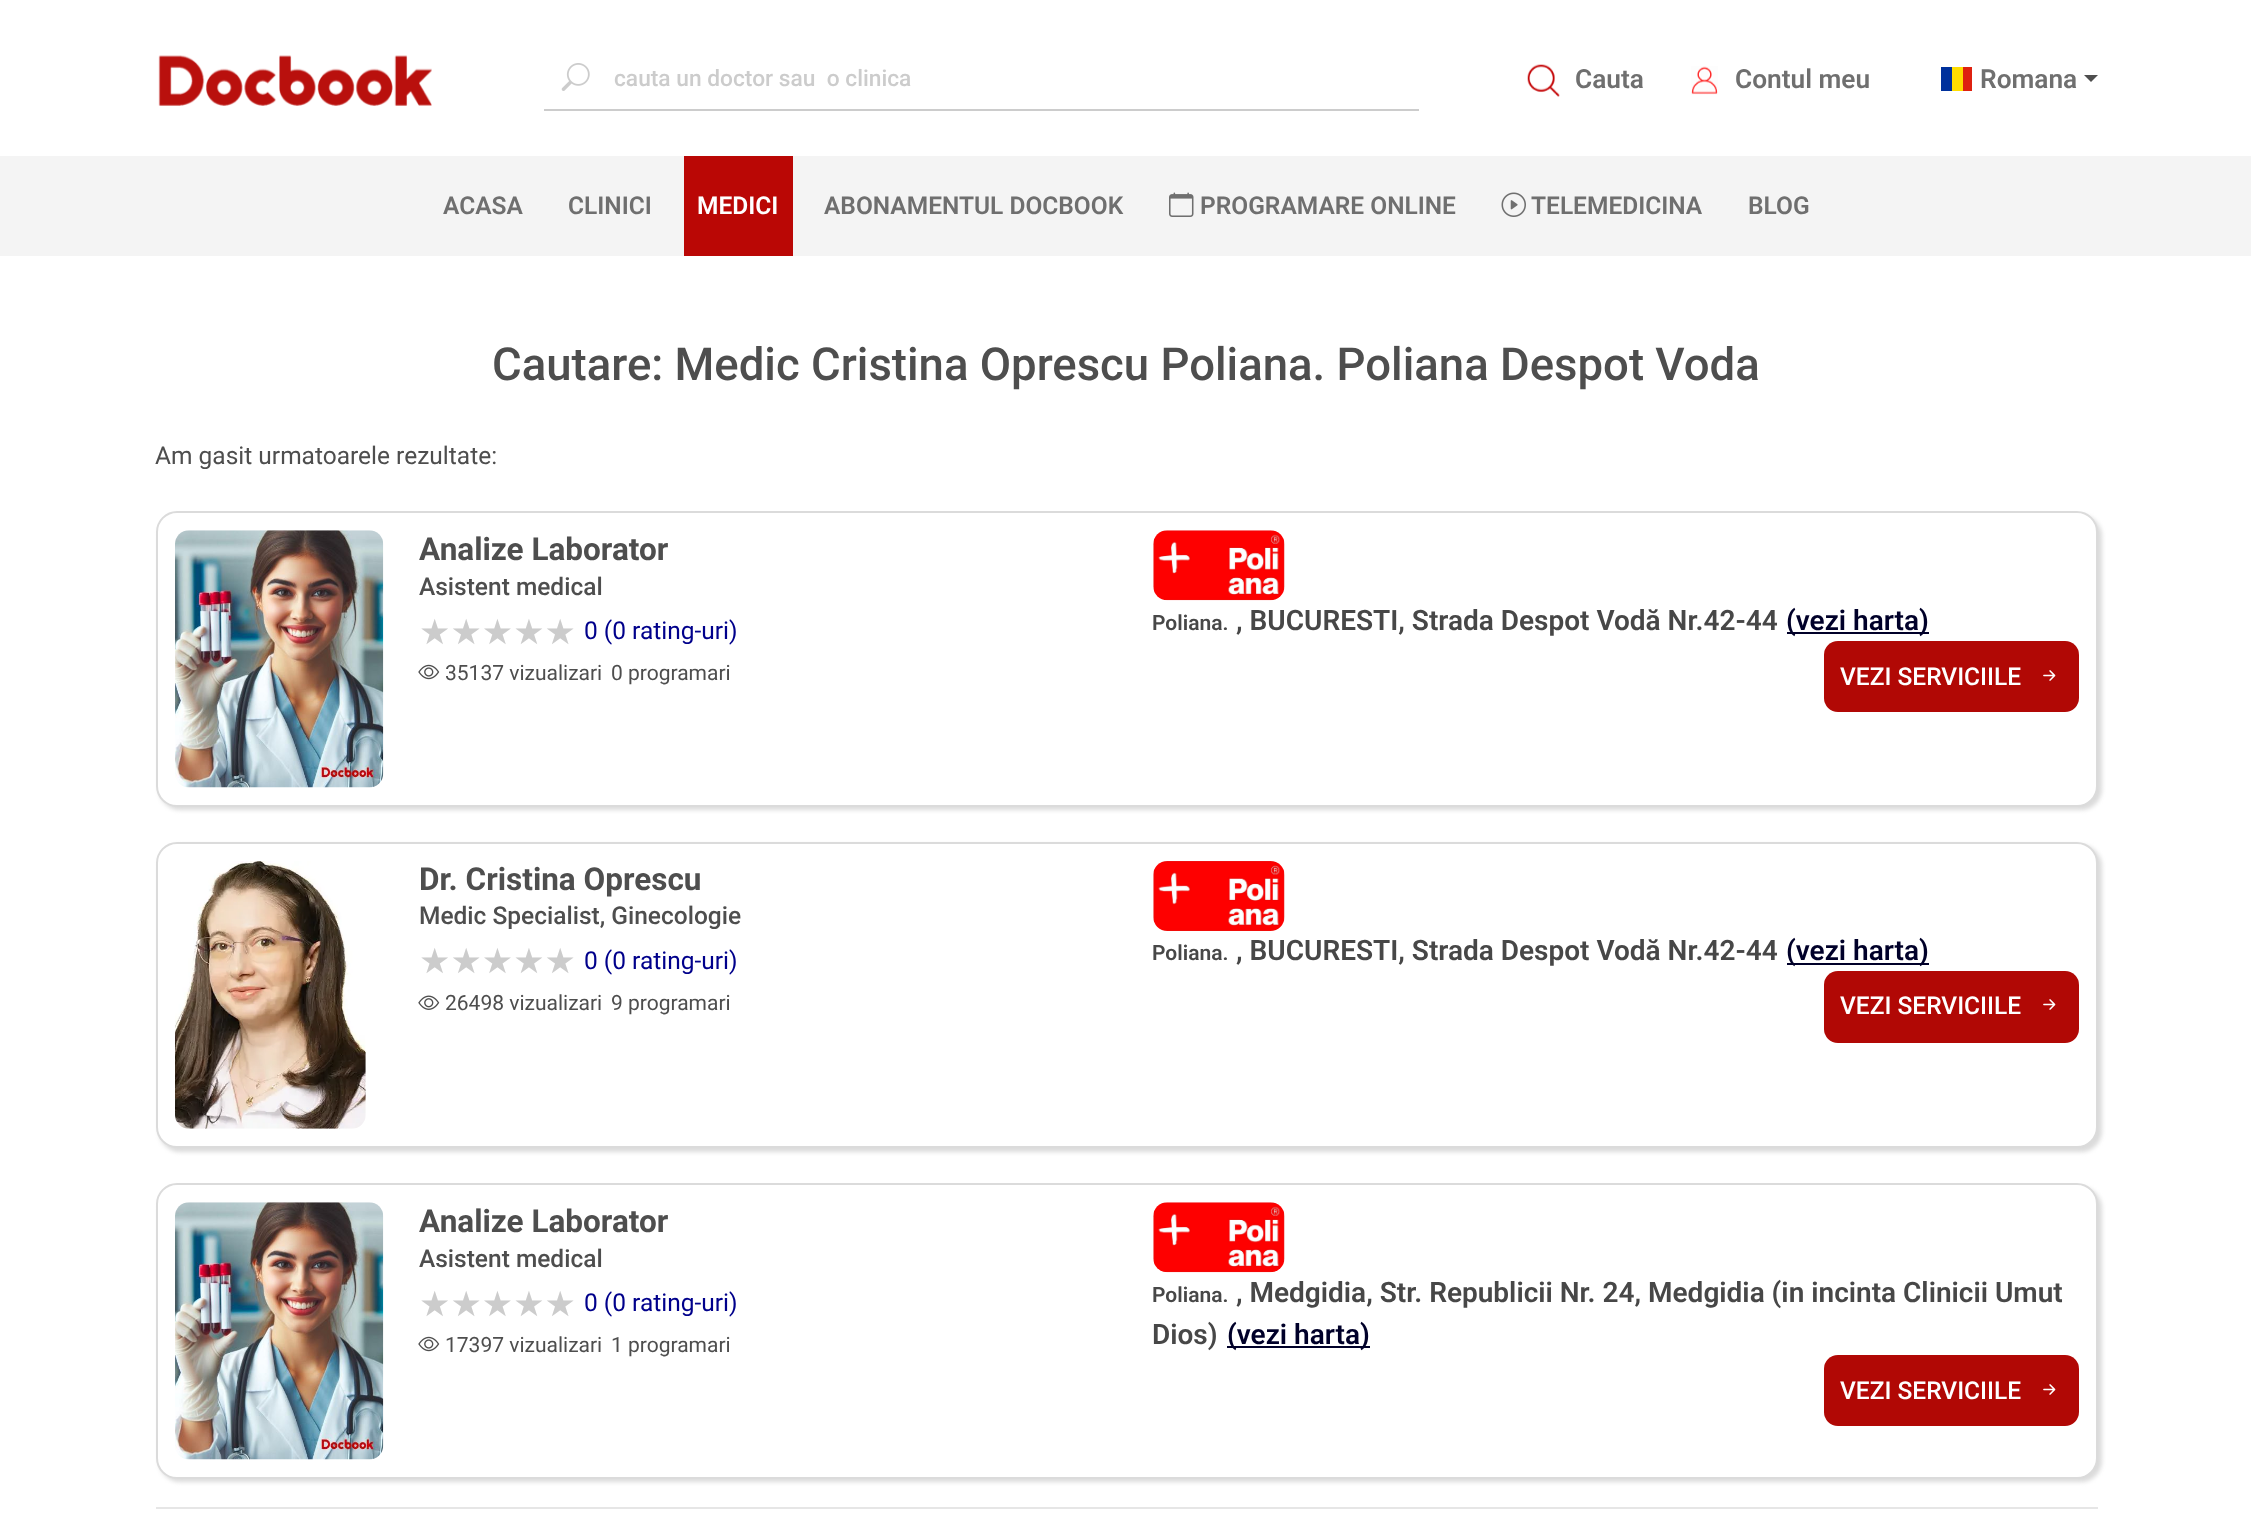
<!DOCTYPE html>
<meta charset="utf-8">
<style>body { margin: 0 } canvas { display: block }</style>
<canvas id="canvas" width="2251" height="1523"></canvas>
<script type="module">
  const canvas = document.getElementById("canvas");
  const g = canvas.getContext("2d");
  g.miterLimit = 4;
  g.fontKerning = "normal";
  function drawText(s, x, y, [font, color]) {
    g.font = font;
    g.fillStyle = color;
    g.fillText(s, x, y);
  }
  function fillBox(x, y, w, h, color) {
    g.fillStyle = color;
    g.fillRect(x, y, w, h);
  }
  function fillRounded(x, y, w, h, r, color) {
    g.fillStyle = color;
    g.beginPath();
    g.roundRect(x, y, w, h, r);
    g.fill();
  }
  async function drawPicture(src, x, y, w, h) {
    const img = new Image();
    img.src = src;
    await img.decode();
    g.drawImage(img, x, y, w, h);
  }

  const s1 = ["500 22.75px Roboto", "#CCCCCC"];
  const s2 = ["600 26.25px Roboto", "#6F6F6F"];
  const s3 = ["600 24.5px Roboto", "#6F6F6F"];
  const s4 = ["600 24.5px Roboto", "#FFFFFF"];
  const s5 = ["500 45.5px Roboto", "#4E4E4E"];
  const s6 = ["24.5px Roboto", "#4E4E4E"];
  const s7 = ["bold 31.5px Roboto", "#4E4E4E"];
  const s8 = ["500 24.5px Roboto", "#4E4E4E"];
  const s9 = ["35px DejaVu Sans", "#CCCCCC"];
  const s10 = ["24.5px Roboto", "#00008B"];
  const s11 = ["21px Roboto", "#4E4E4E"];
  const s12 = ["600 21px Roboto", "#474747"];
  const s13 = ["600 28px Roboto", "#474747"];
  const s14 = ["600 28px Roboto", "#000029"];
  const s15 = ["500 24.5px Roboto", "#FFFFFF"];

  fillBox(0, 0, 2251, 1523, "#FFFFFF");
  fillBox(0, 156, 2251, 100, "#F4F4F4");
  await drawPicture("pic1.png", 158, 55, 274, 51);
  await drawPicture("pic2.png", 561, 63, 29, 28);
  fillBox(544, 109, 875, 2, "#CCCCCC");
  drawText("cauta un doctor sau  o clinica", 614, 86, s1);
  await drawPicture("pic3.png", 1527, 64, 33, 33);
  drawText("Cauta", 1575, 88, s2);
  await drawPicture("pic4.png", 1691, 66, 27, 29);
  drawText("Contul meu", 1735, 88, s2);
  fillBox(1941, 67, 11, 24, "#00319C");
  fillBox(1952, 67, 11, 24, "#FFDE00");
  fillBox(1963, 67, 9, 24, "#DE2110");
  drawText("Romana", 1980, 88, s2);
  g.fillStyle = "#4E4E4E";
  g.beginPath();
  g.moveTo(2084, 75);
  g.lineTo(2098, 75);
  g.lineTo(2091, 82);
  g.closePath();
  g.fill();
  drawText("ACASA", 443, 214, s3);
  drawText("CLINICI", 568, 214, s3);
  fillBox(684, 156, 109, 100, "#BA0705");
  drawText("MEDICI", 697, 214, s4);
  drawText("ABONAMENTUL DOCBOOK", 824, 214, s3);
  await drawPicture("pic5.png", 1169, 192, 25, 25);
  drawText("PROGRAMARE ONLINE", 1200, 214, s3);
  await drawPicture("pic6.png", 1501, 192, 25, 25);
  drawText("TELEMEDICINA", 1531, 214, s3);
  drawText("BLOG", 1748, 214, s3);
  drawText("Cautare: Medic Cristina Oprescu Poliana. Poliana Despot Voda", 492, 380, s5);
  drawText("Am gasit urmatoarele rezultate:", 155, 464, s6);
  g.fillStyle = "#DBDBDB";
  g.filter = "blur(2px)";
  g.beginPath();
  g.roundRect(159, 515, 1943, 295, 21);
  g.fill();
  g.filter = "none";
  g.fillStyle = "#FFFFFF";
  g.beginPath();
  g.roundRect(157, 512, 1940, 294, 20);
  g.fill();
  g.strokeStyle = "#DBDBDB";
  g.lineWidth = 2;
  g.stroke();
  await drawPicture("pic7.png", 175, 530, 209, 258);
  drawText("Analize Laborator", 419, 560, s7);
  drawText("Asistent medical", 419, 595, s8);
  drawText("★★★★★", 419, 644, s9);
  drawText("0 (0 rating-uri)", 584, 639, s10);
  await drawPicture("pic8.png", 418, 664, 22, 16);
  drawText("35137 vizualizari", 445, 680, s11);
  drawText("0 programari", 611, 680, s11);
  await drawPicture("pic9.png", 1153, 530, 132, 71);
  drawText("Poliana.", 1152, 630, s12);
  drawText(", BUCURESTI, Strada Despot Vodă Nr.42-44", 1236, 630, s13);
  fillBox(1787, 632, 142, 2, "#000029");
  drawText("(vezi harta)", 1786, 630, s14);
  fillRounded(1824, 641, 255, 71, 14, "#B10805");
  drawText("VEZI SERVICIILE", 1840, 685, s15);
  await drawPicture("pic10.png", 2043, 670, 13, 11);
  g.fillStyle = "#DBDBDB";
  g.filter = "blur(2px)";
  g.beginPath();
  g.roundRect(159, 845, 1943, 307, 21);
  g.fill();
  g.filter = "none";
  g.fillStyle = "#FFFFFF";
  g.beginPath();
  g.roundRect(157, 843, 1940, 304, 20);
  g.fill();
  g.stroke();
  await drawPicture("pic11.png", 175, 861, 191, 268);
  drawText("Dr. Cristina Oprescu", 419, 890, s7);
  drawText("Medic Specialist, Ginecologie", 419, 924, s8);
  drawText("★★★★★", 419, 973, s9);
  drawText("0 (0 rating-uri)", 584, 969, s10);
  await drawPicture("pic12.png", 418, 995, 22, 15);
  drawText("26498 vizualizari", 445, 1010, s11);
  drawText("9 programari", 611, 1010, s11);
  await drawPicture("pic13.png", 1153, 861, 132, 70);
  drawText("Poliana.", 1152, 960, s12);
  drawText(", BUCURESTI, Strada Despot Vodă Nr.42-44", 1236, 960, s13);
  fillBox(1787, 963, 142, 2, "#000029");
  drawText("(vezi harta)", 1786, 960, s14);
  fillRounded(1824, 971, 255, 72, 14, "#B10805");
  drawText("VEZI SERVICIILE", 1840, 1014, s15);
  await drawPicture("pic10.png", 2043, 999, 13, 11);
  g.fillStyle = "#DBDBDB";
  g.filter = "blur(2px)";
  g.beginPath();
  g.roundRect(159, 1187, 1943, 295, 21);
  g.fill();
  g.filter = "none";
  g.fillStyle = "#FFFFFF";
  g.beginPath();
  g.roundRect(157, 1184, 1940, 294, 20);
  g.fill();
  g.stroke();
  await drawPicture("pic7.png", 175, 1202, 209, 258);
  drawText("Analize Laborator", 419, 1232, s7);
  drawText("Asistent medical", 419, 1267, s8);
  drawText("★★★★★", 419, 1316, s9);
  drawText("0 (0 rating-uri)", 584, 1311, s10);
  await drawPicture("pic8.png", 418, 1336, 22, 16);
  drawText("17397 vizualizari", 445, 1352, s11);
  drawText("1 programari", 611, 1352, s11);
  await drawPicture("pic14.png", 1153, 1202, 132, 71);
  drawText("Poliana.", 1152, 1302, s12);
  drawText(", Medgidia, Str. Republicii Nr. 24, Medgidia (in incinta Clinicii Umut", 1236, 1302, s13);
  drawText("Dios)", 1152, 1344, s13);
  fillBox(1227, 1346, 143, 2, "#000029");
  drawText("(vezi harta)", 1227, 1344, s14);
  fillRounded(1824, 1355, 255, 71, 14, "#B10805");
  drawText("VEZI SERVICIILE", 1840, 1399, s15);
  await drawPicture("pic10.png", 2043, 1384, 13, 11);
  fillBox(156, 1507, 1942, 2, "#E6E6E6");
</script>
